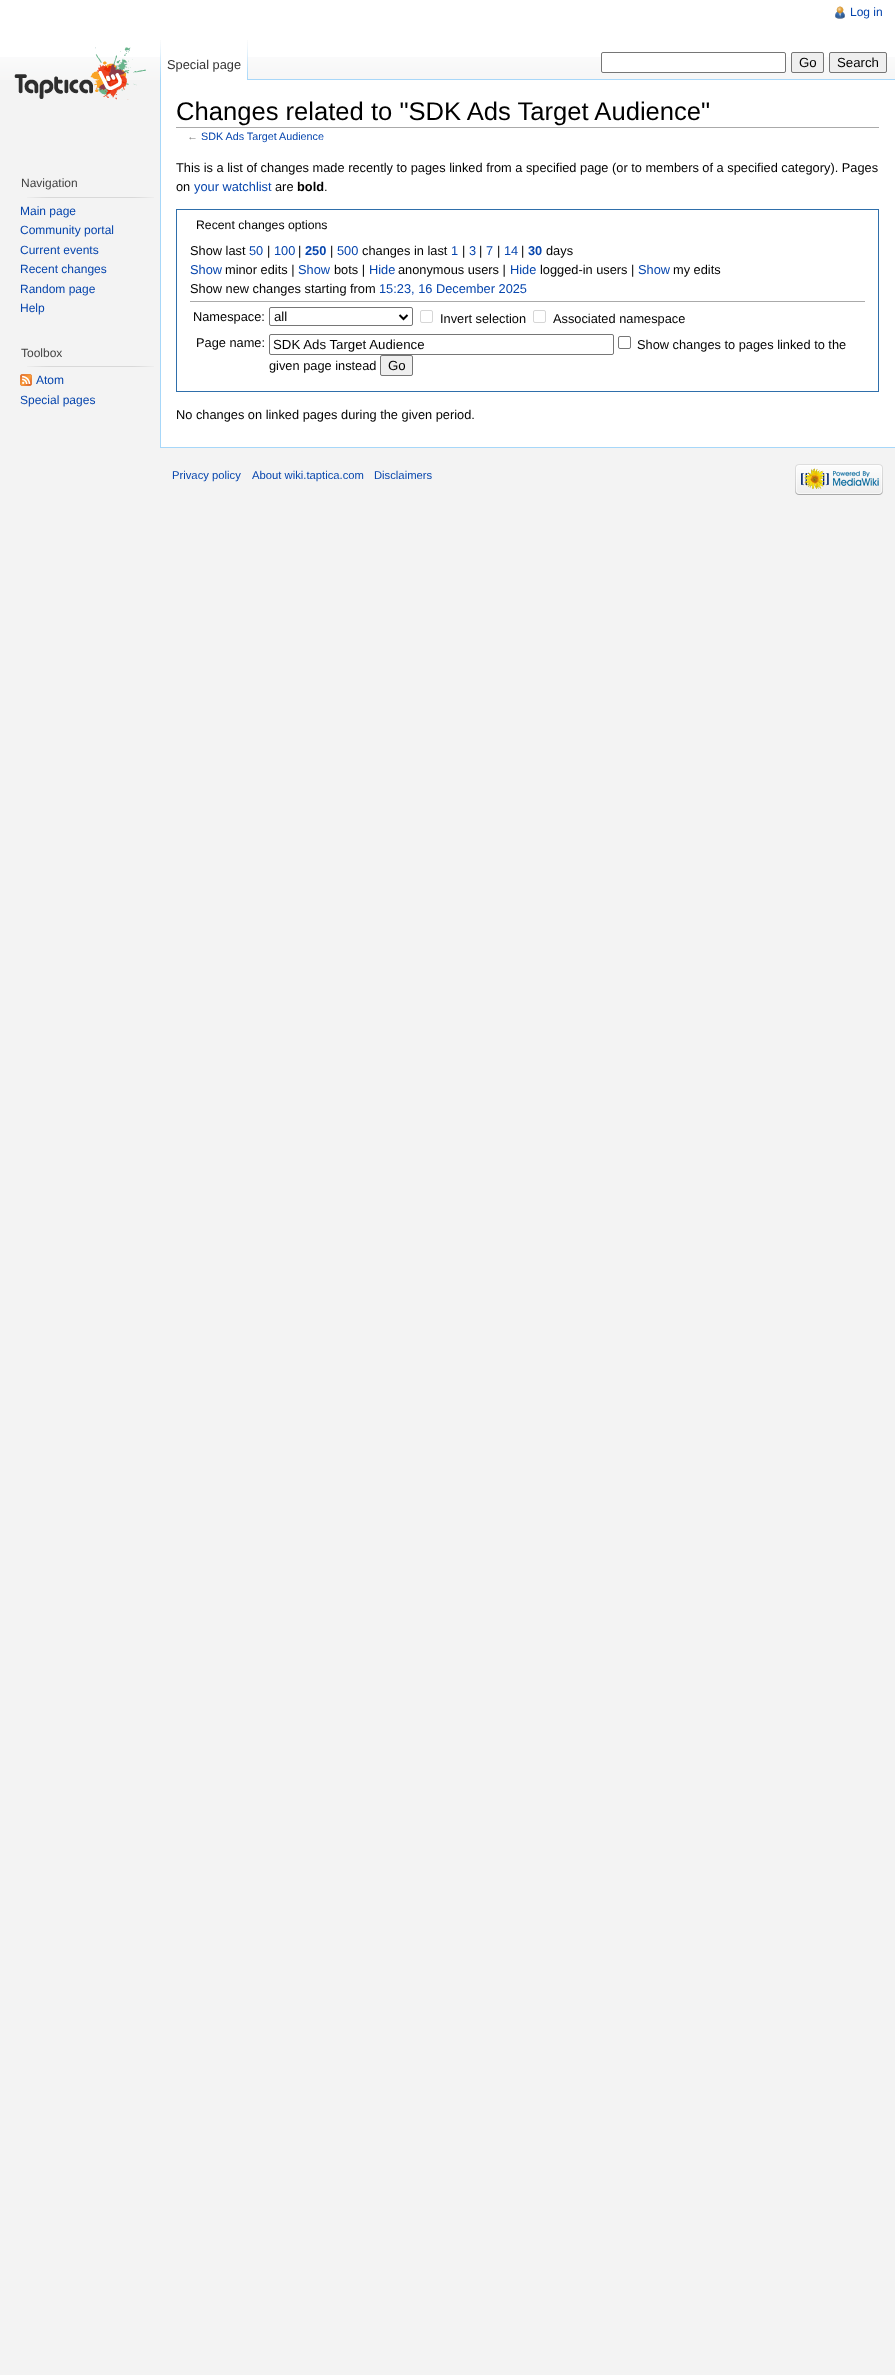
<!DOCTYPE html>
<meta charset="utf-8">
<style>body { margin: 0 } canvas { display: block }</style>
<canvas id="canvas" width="895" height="2375"></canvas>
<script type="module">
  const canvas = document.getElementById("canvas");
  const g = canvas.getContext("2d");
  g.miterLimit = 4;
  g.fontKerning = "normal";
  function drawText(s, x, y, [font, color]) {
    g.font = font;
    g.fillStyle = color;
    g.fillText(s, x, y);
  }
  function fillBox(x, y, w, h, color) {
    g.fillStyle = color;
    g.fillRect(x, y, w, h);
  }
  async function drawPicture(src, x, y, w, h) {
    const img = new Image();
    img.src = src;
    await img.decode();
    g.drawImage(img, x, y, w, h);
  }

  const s1 = ["12px Liberation Sans", "#0645AD"];
  const s2 = ["12.8px Liberation Sans", "#333333"];
  const s3 = ["13.25px Liberation Sans", "#000000"];
  const s4 = ["12px Liberation Sans", "#444444"];
  const s5 = ["25.6px Liberation Sans", "#000000"];
  const s6 = ["10.75px Liberation Sans", "#7D7D7D"];
  const s7 = ["10.75px Liberation Sans", "#0645AD"];
  const s8 = ["12.8px Liberation Sans", "#000000"];
  const s9 = ["12.8px Liberation Sans", "#0645AD"];
  const s10 = ["bold 12.8px Liberation Sans", "#000000"];
  const s11 = ["12.25px Liberation Sans", "#000000"];
  const s12 = ["bold 12.8px Liberation Sans", "#0645AD"];
  const s13 = ["11.25px Liberation Sans", "#0645AD"];

  fillBox(0, 0, 895, 2375, "#F3F3F3");
  fillBox(0, 0, 895, 57, "#FFFFFF");
  await drawPicture("pic1.png", 0, 57, 895, 23);
  await drawPicture("pic2.png", 835, 6, 10, 13);
  drawText("Log in", 850, 16, s1);
  await drawPicture("pic3.png", 160, 40, 1, 39);
  fillBox(160, 79, 735, 1, "#A7D7F9");
  fillBox(161, 57, 86, 23, "#FFFFFF");
  await drawPicture("pic4.png", 247, 40, 1, 40);
  drawText("Special page", 167, 69, s2);
  g.fillStyle = "#FFFFFF";
  g.beginPath();
  g.roundRect(601.5, 52.5, 184, 20, 1.5);
  g.fill();
  g.strokeStyle = "#767676";
  g.stroke();
  g.fillStyle = "#EFEFEF";
  g.beginPath();
  g.roundRect(791.5, 52.5, 32, 20, 1.5);
  g.fill();
  g.stroke();
  drawText("Go", 799, 67, s3);
  g.fillStyle = "#EFEFEF";
  g.beginPath();
  g.roundRect(829.5, 52.5, 57, 20, 1.5);
  g.fill();
  g.stroke();
  drawText("Search", 837, 67, s3);
  await drawPicture("pic5.png", 14, 47, 132, 53);
  drawText("Navigation", 21, 187, s4);
  await drawPicture("pic6.png", 27, 197, 127, 1);
  drawText("Main page", 20, 215, s1);
  drawText("Community portal", 20, 234, s1);
  drawText("Current events", 20, 254, s1);
  drawText("Recent changes", 20, 273, s1);
  drawText("Random page", 20, 293, s1);
  drawText("Help", 20, 312, s1);
  drawText("Toolbox", 21, 357, s4);
  await drawPicture("pic6.png", 27, 366, 127, 1);
  await drawPicture("pic7.png", 20, 374, 12, 12);
  drawText("Atom", 36, 384, s1);
  drawText("Special pages", 20, 404, s1);
  fillBox(161, 80, 734, 367, "#FFFFFF");
  fillBox(160, 80, 1, 367, "#A7D7F9");
  fillBox(176, 127, 703, 1, "#AAAAAA");
  drawText("Changes related to \"SDK Ads Target Audience\"", 176, 120, s5);
  drawText("←", 187, 140, s6);
  drawText("SDK Ads Target Audience", 201, 140, s7);
  drawText("This is a list of changes made recently to pages linked from a specified page (or to members of a specified category). Pages", 176, 172, s8);
  drawText("on", 176, 191, s8);
  drawText("your watchlist", 194, 191, s9);
  drawText("are", 275, 191, s8);
  drawText("bold", 297, 191, s10);
  drawText(".", 324, 191, s8);
  g.strokeStyle = "#2F6FAB";
  g.strokeRect(176.5, 209.5, 702, 182);
  drawText("Recent changes options", 196, 229, s11);
  drawText("Show last", 190, 255, s8);
  drawText("50", 249, 255, s9);
  drawText("|", 267, 255, s8);
  drawText("100", 274, 255, s9);
  drawText("|", 298, 255, s8);
  drawText("250", 305, 255, s12);
  drawText("|", 330, 255, s8);
  drawText("500", 337, 255, s9);
  drawText("changes in last", 362, 255, s8);
  drawText("1", 451, 255, s9);
  drawText("|", 462, 255, s8);
  drawText("3", 469, 255, s9);
  drawText("|", 479, 255, s8);
  drawText("7", 486, 255, s9);
  drawText("|", 497, 255, s8);
  drawText("14", 504, 255, s9);
  drawText("|", 521, 255, s8);
  drawText("30", 528, 255, s12);
  drawText("days", 546, 255, s8);
  drawText("Show", 190, 274, s9);
  drawText("minor edits |", 225, 274, s8);
  drawText("Show", 298, 274, s9);
  drawText("bots |", 334, 274, s8);
  drawText("Hide", 369, 274, s9);
  drawText("anonymous users |", 398, 274, s8);
  drawText("Hide", 510, 274, s9);
  drawText("logged-in users |", 540, 274, s8);
  drawText("Show", 638, 274, s9);
  drawText("my edits", 673, 274, s8);
  drawText("Show new changes starting from", 190, 293, s8);
  drawText("15:23, 16 December 2025", 379, 293, s9);
  fillBox(190, 301, 675, 1, "#AAAAAA");
  drawText("Namespace:", 193, 321, s8);
  g.beginPath();
  g.roundRect(269.5, 307.5, 143, 18, 1.5);
  g.strokeStyle = "#767676";
  g.stroke();
  g.beginPath();
  g.moveTo(399.5, 315);
  g.lineTo(403.5, 319);
  g.lineTo(407.5, 315);
  g.strokeStyle = "#000000";
  g.lineWidth = 2;
  g.stroke();
  drawText("all", 274, 321, s3);
  g.beginPath();
  g.roundRect(420.5, 310.5, 12, 12, 1.5);
  g.strokeStyle = "#D6D6D6";
  g.lineWidth = 1;
  g.stroke();
  drawText("Invert selection", 440, 323, s8);
  g.beginPath();
  g.roundRect(533.5, 310.5, 12, 12, 1.5);
  g.stroke();
  drawText("Associated namespace", 553, 323, s8);
  drawText("Page name:", 196, 347, s8);
  g.beginPath();
  g.roundRect(269.5, 334.5, 344, 20, 1.5);
  g.strokeStyle = "#767676";
  g.stroke();
  drawText("SDK Ads Target Audience", 273, 349, s3);
  g.beginPath();
  g.roundRect(618.5, 336.5, 12, 12, 1.5);
  g.stroke();
  drawText("Show changes to pages linked to the", 637, 349, s8);
  drawText("given page instead", 269, 370, s8);
  g.fillStyle = "#EFEFEF";
  g.beginPath();
  g.roundRect(380.5, 355.5, 32, 20, 1.5);
  g.fill();
  g.stroke();
  drawText("Go", 388, 370, s3);
  drawText("No changes on linked pages during the given period.", 176, 419, s8);
  fillBox(160, 447, 735, 1, "#A7D7F9");
  drawText("Privacy policy", 172, 479, s13);
  drawText("About wiki.taptica.com", 252, 479, s13);
  drawText("Disclaimers", 374, 479, s13);
  await drawPicture("pic8.png", 795, 464, 88, 31);
</script>
